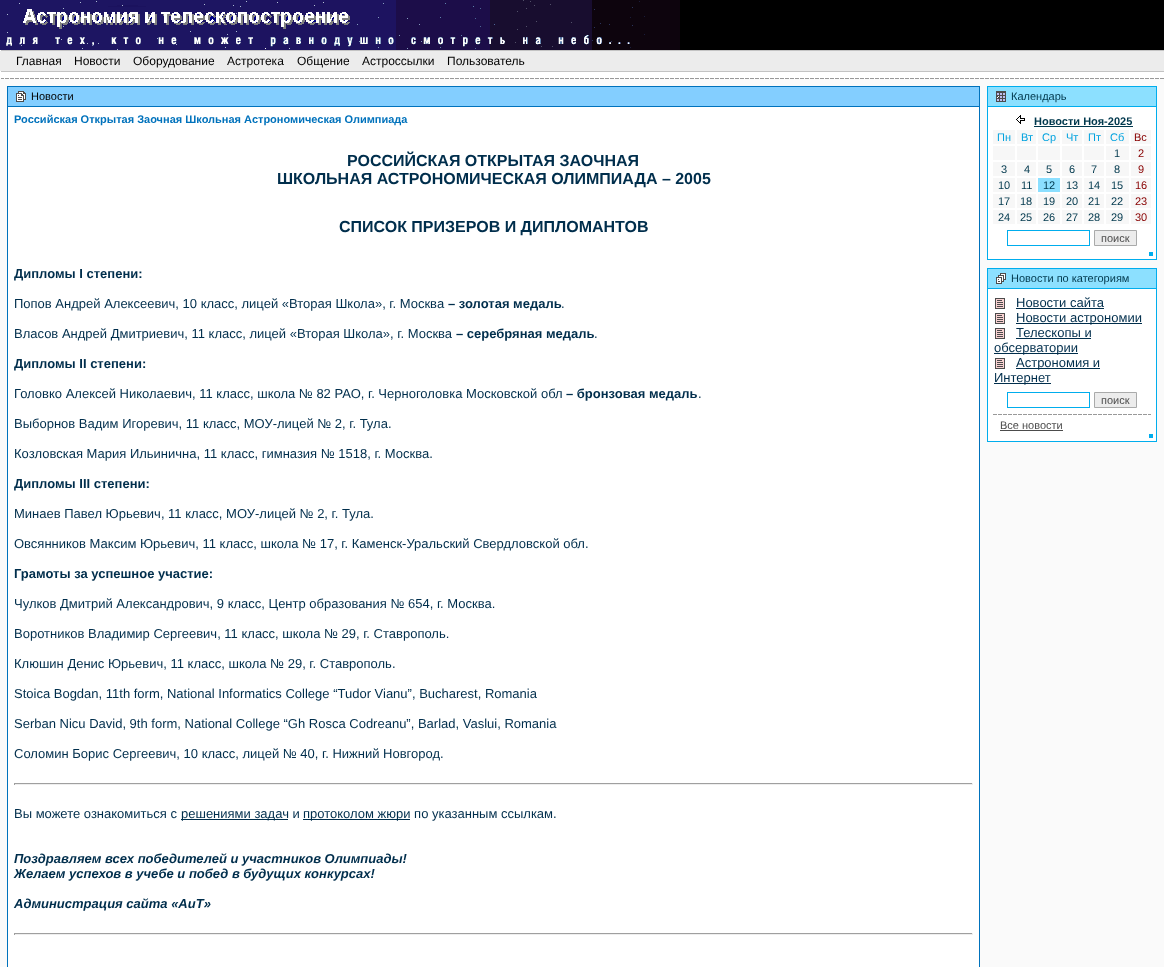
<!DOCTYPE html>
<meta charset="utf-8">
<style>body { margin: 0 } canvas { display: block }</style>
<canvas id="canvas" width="1164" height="967"></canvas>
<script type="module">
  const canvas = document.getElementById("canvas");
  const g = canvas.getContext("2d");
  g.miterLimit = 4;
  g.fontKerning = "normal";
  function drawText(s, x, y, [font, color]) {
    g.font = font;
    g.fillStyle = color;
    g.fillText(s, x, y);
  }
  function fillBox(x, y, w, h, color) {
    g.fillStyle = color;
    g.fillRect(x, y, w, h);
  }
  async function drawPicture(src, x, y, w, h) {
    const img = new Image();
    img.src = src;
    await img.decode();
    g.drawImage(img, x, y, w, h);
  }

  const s1 = ["12px Liberation Sans", "#000000"];
  const s2 = ["11px Liberation Sans", "#000000"];
  const s3 = ["bold 11px Liberation Sans", "#0072BC"];
  const s4 = ["bold 16px Liberation Sans", "#002E4C"];
  const s5 = ["bold 13px Liberation Sans", "#002E4C"];
  const s6 = ["13px Liberation Sans", "#002E4C"];
  const s7 = ["italic bold 13px Liberation Sans", "#002E4C"];
  const s8 = ["11px Liberation Sans", "#00384D"];
  const s9 = ["bold 11px Liberation Sans", "#00384D"];
  const s10 = ["11px Liberation Sans", "#00A2DF"];
  const s11 = ["11px Liberation Sans", "#880000"];
  const s12 = ["11px Liberation Sans", "#4C4C4C"];

  fillBox(0, 0, 1164, 967, "#FFFFFF");
  await drawPicture("pic1.png", 0, 0, 680, 50);
  fillBox(680, 0, 484, 50, "#000000");
  fillBox(0, 50, 1164, 1, "#C3C3C3");
  fillBox(0, 50, 1, 1, "#FFFFFF");
  fillBox(0, 51, 1164, 20, "#ECECEC");
  drawText("Главная", 16, 65, s1);
  drawText("Новости", 74, 65, s1);
  drawText("Оборудование", 133, 65, s1);
  drawText("Астротека", 227, 65, s1);
  drawText("Общение", 297, 65, s1);
  drawText("Астроссылки", 362, 65, s1);
  drawText("Пользователь", 447, 65, s1);
  fillBox(0, 71, 1164, 1, "#C3C3C3");
  fillBox(0, 71, 1, 1, "#FFFFFF");
  await drawPicture("pic2.png", 1, 78, 1163, 1);
  fillBox(0, 79, 1164, 888, "#FAFAFA");
  fillBox(7, 86, 973, 881, "#0072BC");
  fillBox(8, 87, 971, 19, "#83CEFF");
  await drawPicture("pic3.png", 16, 91, 10, 11);
  drawText("Новости", 31, 100, s2);
  fillBox(8, 107, 971, 860, "#FFFFFF");
  drawText("Российская Открытая Заочная Школьная Астрономическая Олимпиада", 14, 123, s3);
  drawText("РОССИЙСКАЯ ОТКРЫТАЯ ЗАОЧНАЯ", 347, 166, s4);
  drawText("ШКОЛЬНАЯ АСТРОНОМИЧЕСКАЯ ОЛИМПИАДА – 2005", 277, 184, s4);
  drawText("СПИСОК ПРИЗЕРОВ И ДИПЛОМАНТОВ", 339, 232, s4);
  drawText("Дипломы I степени:", 14, 278, s5);
  drawText("Попов Андрей Алексеевич, 10 класс, лицей «Вторая Школа», г. Москва", 14, 308, s6);
  drawText("– золотая медаль", 448, 308, s5);
  drawText(".", 561, 308, s6);
  drawText("Власов Андрей Дмитриевич, 11 класс, лицей «Вторая Школа», г. Москва", 14, 338, s6);
  drawText("– серебряная медаль", 456, 338, s5);
  drawText(".", 594, 338, s6);
  drawText("Дипломы II степени:", 14, 368, s5);
  drawText("Головко Алексей Николаевич, 11 класс, школа № 82 РАО, г. Черноголовка Московской обл", 14, 398, s6);
  drawText("– бронзовая медаль", 566, 398, s5);
  drawText(".", 698, 398, s6);
  drawText("Выборнов Вадим Игоревич, 11 класс, МОУ-лицей № 2, г. Тула.", 14, 428, s6);
  drawText("Козловская Мария Ильинична, 11 класс, гимназия № 1518, г. Москва.", 14, 458, s6);
  drawText("Дипломы III степени:", 14, 488, s5);
  drawText("Минаев Павел Юрьевич, 11 класс, МОУ-лицей № 2, г. Тула.", 14, 518, s6);
  drawText("Овсянников Максим Юрьевич, 11 класс, школа № 17, г. Каменск-Уральский Свердловской обл.", 14, 548, s6);
  drawText("Грамоты за успешное участие:", 14, 578, s5);
  drawText("Чулков Дмитрий Александрович, 9 класс, Центр образования № 654, г. Москва.", 14, 608, s6);
  drawText("Воротников Владимир Сергеевич, 11 класс, школа № 29, г. Ставрополь.", 14, 638, s6);
  drawText("Клюшин Денис Юрьевич, 11 класс, школа № 29, г. Ставрополь.", 14, 668, s6);
  drawText("Stoica Bogdan, 11th form, National Informatics College “Tudor Vianu”, Bucharest, Romania", 14, 698, s6);
  drawText("Serban Nicu David, 9th form, National College “Gh Rosca Codreanu”, Barlad, Vaslui, Romania", 14, 728, s6);
  drawText("Соломин Борис Сергеевич, 10 класс, лицей № 40, г. Нижний Новгород.", 14, 758, s6);
  fillBox(14, 783, 959, 1, "#9F9F9F");
  fillBox(972, 783, 1, 2, "#EEEEEE");
  fillBox(14, 784, 959, 1, "#EEEEEE");
  fillBox(14, 783, 1, 2, "#9F9F9F");
  drawText("Вы можете ознакомиться с", 14, 818, s6);
  fillBox(181, 819, 107, 1, "#002E4C");
  drawText("решениями задач и", 181, 818, s6);
  fillBox(303, 819, 107, 1, "#002E4C");
  drawText("протоколом жюри по указанным ссылкам.", 303, 818, s6);
  drawText("Поздравляем всех победителей и участников Олимпиады!", 14, 863, s7);
  drawText("Желаем успехов в учебе и побед в будущих конкурсах!", 14, 878, s7);
  drawText("Администрация сайта «АиТ»", 14, 908, s7);
  fillBox(14, 933, 959, 1, "#9F9F9F");
  fillBox(972, 933, 1, 2, "#EEEEEE");
  fillBox(14, 934, 959, 1, "#EEEEEE");
  fillBox(14, 933, 1, 2, "#9F9F9F");
  fillBox(987, 86, 170, 174, "#00ADED");
  fillBox(988, 87, 168, 19, "#8CE0FF");
  await drawPicture("pic4.png", 996, 91, 10, 11);
  drawText("Календарь", 1011, 100, s8);
  fillBox(988, 107, 168, 152, "#FFFFFF");
  await drawPicture("pic5.png", 1016, 115, 9, 9);
  drawText("Новости Ноя-2025", 1034, 125, s9);
  fillBox(1034, 126, 99, 1, "#00384D");
  fillBox(993, 130, 22, 14, "#F7F7F7");
  drawText("Пн", 997, 141, s10);
  fillBox(1017, 130, 19, 14, "#F7F7F7");
  drawText("Вт", 1021, 141, s10);
  fillBox(1038, 130, 22, 14, "#F7F7F7");
  drawText("Ср", 1042, 141, s10);
  fillBox(1062, 130, 20, 14, "#F7F7F7");
  drawText("Чт", 1066, 141, s10);
  fillBox(1084, 130, 20, 14, "#F7F7F7");
  drawText("Пт", 1088, 141, s10);
  fillBox(1106, 130, 23, 14, "#F7F7F7");
  drawText("Сб", 1110, 141, s10);
  fillBox(1131, 130, 20, 14, "#F7F7F7");
  drawText("Вс", 1134, 141, s11);
  fillBox(993, 146, 22, 14, "#F7F7F7");
  fillBox(1017, 146, 19, 14, "#F7F7F7");
  fillBox(1038, 146, 22, 14, "#F7F7F7");
  fillBox(1062, 146, 20, 14, "#F7F7F7");
  fillBox(1084, 146, 20, 14, "#F7F7F7");
  fillBox(1106, 146, 23, 14, "#F7F7F7");
  drawText("1", 1114, 157, s8);
  fillBox(1131, 146, 20, 14, "#F7F7F7");
  drawText("2", 1138, 157, s11);
  fillBox(993, 162, 22, 14, "#F7F7F7");
  drawText("3", 1001, 173, s8);
  fillBox(1017, 162, 19, 14, "#F7F7F7");
  drawText("4", 1024, 173, s8);
  fillBox(1038, 162, 22, 14, "#F7F7F7");
  drawText("5", 1046, 173, s8);
  fillBox(1062, 162, 20, 14, "#F7F7F7");
  drawText("6", 1069, 173, s8);
  fillBox(1084, 162, 20, 14, "#F7F7F7");
  drawText("7", 1091, 173, s8);
  fillBox(1106, 162, 23, 14, "#F7F7F7");
  drawText("8", 1114, 173, s8);
  fillBox(1131, 162, 20, 14, "#F7F7F7");
  drawText("9", 1138, 173, s11);
  fillBox(993, 178, 22, 14, "#F7F7F7");
  drawText("10", 998, 189, s8);
  fillBox(1017, 178, 19, 14, "#F7F7F7");
  drawText("11", 1021, 189, s8);
  fillBox(1038, 178, 22, 14, "#8BDFFF");
  drawText("12", 1043, 189, s8);
  fillBox(1062, 178, 20, 14, "#F7F7F7");
  drawText("13", 1066, 189, s8);
  fillBox(1084, 178, 20, 14, "#F7F7F7");
  drawText("14", 1088, 189, s8);
  fillBox(1106, 178, 23, 14, "#F7F7F7");
  drawText("15", 1111, 189, s8);
  fillBox(1131, 178, 20, 14, "#F7F7F7");
  drawText("16", 1135, 189, s11);
  fillBox(993, 194, 22, 14, "#F7F7F7");
  drawText("17", 998, 205, s8);
  fillBox(1017, 194, 19, 14, "#F7F7F7");
  drawText("18", 1020, 205, s8);
  fillBox(1038, 194, 22, 14, "#F7F7F7");
  drawText("19", 1043, 205, s8);
  fillBox(1062, 194, 20, 14, "#F7F7F7");
  drawText("20", 1066, 205, s8);
  fillBox(1084, 194, 20, 14, "#F7F7F7");
  drawText("21", 1088, 205, s8);
  fillBox(1106, 194, 23, 14, "#F7F7F7");
  drawText("22", 1111, 205, s8);
  fillBox(1131, 194, 20, 14, "#F7F7F7");
  drawText("23", 1135, 205, s11);
  fillBox(993, 210, 22, 14, "#F7F7F7");
  drawText("24", 998, 221, s8);
  fillBox(1017, 210, 19, 14, "#F7F7F7");
  drawText("25", 1020, 221, s8);
  fillBox(1038, 210, 22, 14, "#F7F7F7");
  drawText("26", 1043, 221, s8);
  fillBox(1062, 210, 20, 14, "#F7F7F7");
  drawText("27", 1066, 221, s8);
  fillBox(1084, 210, 20, 14, "#F7F7F7");
  drawText("28", 1088, 221, s8);
  fillBox(1106, 210, 23, 14, "#F7F7F7");
  drawText("29", 1111, 221, s8);
  fillBox(1131, 210, 20, 14, "#F7F7F7");
  drawText("30", 1135, 221, s11);
  g.strokeStyle = "#00ADED";
  g.strokeRect(1007.5, 230.5, 82, 15);
  g.fillStyle = "#ECECEC";
  g.beginPath();
  g.rect(1094.5, 230.5, 42, 15);
  g.fill();
  g.strokeStyle = "#A9AAAA";
  g.stroke();
  drawText("поиск", 1101, 242, s12);
  fillBox(1149, 252, 4, 4, "#00ADED");
  fillBox(987, 268, 170, 174, "#00ADED");
  fillBox(988, 269, 168, 19, "#8CE0FF");
  await drawPicture("pic6.png", 996, 273, 10, 11);
  drawText("Новости по категориям", 1011, 282, s8);
  fillBox(988, 289, 168, 152, "#FFFFFF");
  await drawPicture("pic7.png", 995, 298, 10, 11);
  drawText("Новости сайта", 1016, 307, s6);
  fillBox(1016, 308, 88, 1, "#002E4C");
  await drawPicture("pic7.png", 995, 313, 10, 11);
  fillBox(1016, 323, 126, 1, "#002E4C");
  drawText("Новости астрономии", 1016, 322, s6);
  await drawPicture("pic7.png", 995, 328, 10, 11);
  drawText("Телескопы и", 1016, 337, s6);
  fillBox(1016, 338, 75, 1, "#002E4C");
  fillBox(994, 353, 84, 1, "#002E4C");
  drawText("обсерватории", 994, 352, s6);
  await drawPicture("pic7.png", 995, 358, 10, 11);
  fillBox(1016, 368, 84, 1, "#002E4C");
  drawText("Астрономия и", 1016, 367, s6);
  fillBox(994, 383, 57, 1, "#002E4C");
  drawText("Интернет", 994, 382, s6);
  g.strokeStyle = "#00ADED";
  g.strokeRect(1007.5, 392.5, 82, 15);
  g.fillStyle = "#ECECEC";
  g.beginPath();
  g.rect(1094.5, 392.5, 42, 15);
  g.fill();
  g.strokeStyle = "#A9AAAA";
  g.stroke();
  drawText("поиск", 1101, 404, s12);
  await drawPicture("pic8.png", 993, 414, 158, 1);
  drawText("Все новости", 1000, 429, s12);
  fillBox(1000, 430, 63, 1, "#4C4C4C");
  fillBox(1149, 434, 4, 4, "#00ADED");
</script>
